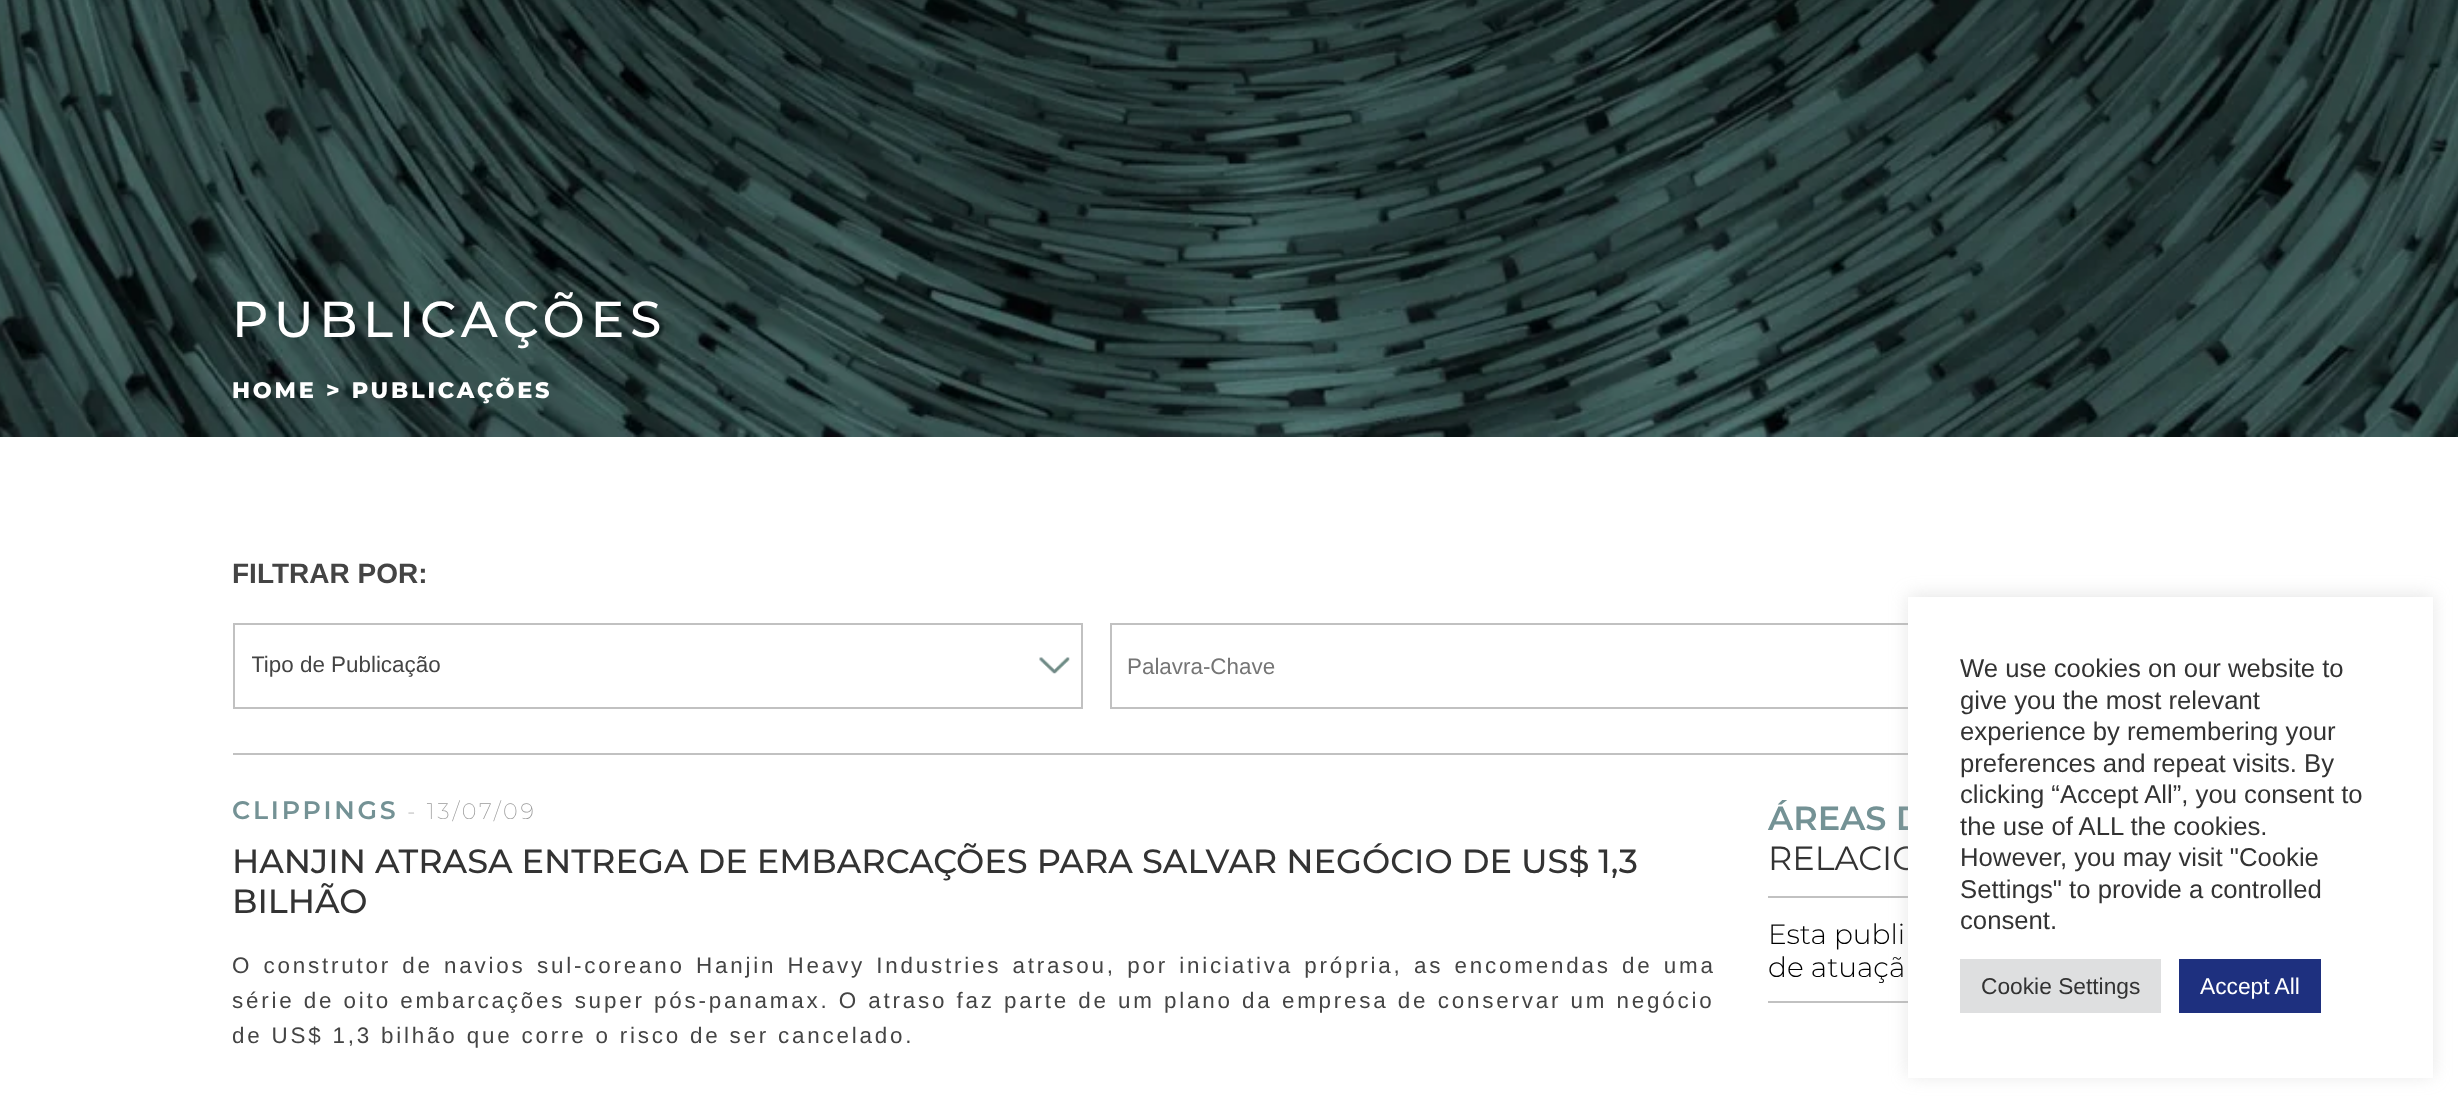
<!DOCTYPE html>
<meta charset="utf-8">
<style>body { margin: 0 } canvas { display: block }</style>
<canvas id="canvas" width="2458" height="1103"></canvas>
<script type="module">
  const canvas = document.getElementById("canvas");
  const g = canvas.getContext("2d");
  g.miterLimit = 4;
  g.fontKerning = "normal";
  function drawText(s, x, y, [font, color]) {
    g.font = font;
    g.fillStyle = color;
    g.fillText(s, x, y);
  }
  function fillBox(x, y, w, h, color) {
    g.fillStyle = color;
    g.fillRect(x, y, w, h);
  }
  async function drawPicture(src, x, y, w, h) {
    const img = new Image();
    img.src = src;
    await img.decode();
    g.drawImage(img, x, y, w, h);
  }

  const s1 = ["500 50.5px Montserrat", "#FFFFFF"];
  const s2 = ["800 22.4px Montserrat", "#FFFFFF"];
  const s3 = ["bold 28px Arimo", "#444444"];
  const s4 = ["22.4px Arimo", "#444444"];
  const s5 = ["22.4px Arimo", "#757575"];
  const s6 = ["600 25.25px Montserrat", "#749295"];
  const s7 = ["200 22.4px Montserrat", "#9A9A9A"];
  const s8 = ["500 33.6px Montserrat", "#333333"];
  const s9 = ["600 33.6px Montserrat", "#749295"];
  const s10 = ["33.6px Montserrat", "#333333"];
  const s11 = ["300 28px Montserrat", "#000000"];
  const s12 = ["25.7px Liberation Sans", "#333333"];
  const s13 = ["22.75px Liberation Sans", "#333333"];
  const s14 = ["22.75px Liberation Sans", "#FFFFFF"];

  fillBox(0, 0, 2458, 1103, "#FFFFFF");
  await drawPicture("pic1.png", 0, 0, 2458, 437);
  g.letterSpacing = "5.6px";
  drawText("PUBLICAÇÕES", 232, 337, s1);
  g.letterSpacing = "2.8px";
  drawText("HOME > PUBLICAÇÕES", 232, 398, s2);
  fillBox(233, 753, 1675, 2, "#C1C1C1");
  g.letterSpacing = "0px";
  drawText("FILTRAR POR:", 232, 583, s3);
  await drawPicture("pic2.png", 1039, 657, 31, 17);
  g.strokeStyle = "#C1C1C1";
  g.lineWidth = 2;
  g.strokeRect(234, 624, 848, 84);
  g.save();
  g.beginPath();
  g.rect(252, 655, 812, 22);
  g.clip();
  drawText("Tipo de Publicação", 251, 672, s4);
  g.restore();
  g.strokeRect(1111, 624, 848, 84);
  drawText("Palavra-Chave", 1127, 674, s5);
  g.letterSpacing = "2.8px";
  drawText("CLIPPINGS", 232, 819, s6);
  drawText("- 13/07/09", 407, 819, s7);
  g.letterSpacing = "0px";
  drawText("HANJIN ATRASA ENTREGA DE EMBARCAÇÕES PARA SALVAR NEGÓCIO DE US$ 1,3", 232, 873, s8);
  drawText("BILHÃO", 232, 913, s8);
  g.letterSpacing = "2.8px";
  g.wordSpacing = "2.25px";
  drawText("O construtor de navios sul-coreano Hanjin Heavy Industries atrasou, por iniciativa própria, as encomendas de uma", 232, 973, s4);
  g.wordSpacing = "0.25px";
  drawText("série de oito embarcações super pós-panamax. O atraso faz parte de um plano da empresa de conservar um negócio", 232, 1008, s4);
  g.wordSpacing = "0px";
  drawText("de US$ 1,3 bilhão que corre o risco de ser cancelado.", 232, 1043, s4);
  g.letterSpacing = "0px";
  drawText("ÁREAS D", 1768, 830, s9);
  drawText("RELACIO", 1768, 870, s10);
  fillBox(1768, 896, 140, 2, "#C1C1C1");
  fillBox(1768, 1001, 140, 2, "#C1C1C1");
  drawText("Esta publi", 1768, 944, s11);
  drawText("de atuaçã", 1768, 977, s11);
  g.fillStyle = "rgba(172, 171, 171, 0.3)";
  g.filter = "blur(9px)";
  g.beginPath();
  g.rect(1908, 595, 525, 481);
  g.fill();
  g.filter = "none";
  fillBox(1908, 597, 525, 481, "#FFFFFF");
  drawText("We use cookies on our website to", 1960, 677, s12);
  drawText("give you the most relevant", 1960, 709, s12);
  drawText("experience by remembering your", 1960, 740, s12);
  drawText("preferences and repeat visits. By", 1960, 772, s12);
  drawText("clicking “Accept All”, you consent to", 1960, 803, s12);
  drawText("the use of ALL the cookies.", 1960, 835, s12);
  drawText("However, you may visit \"Cookie", 1960, 866, s12);
  drawText("Settings\" to provide a controlled", 1960, 898, s12);
  drawText("consent.", 1960, 929, s12);
  fillBox(1960, 959, 201, 54, "#DEDFE0");
  drawText("Cookie Settings", 1981, 994, s13);
  fillBox(2179, 959, 142, 54, "#1E307F");
  drawText("Accept All", 2200, 994, s14);
</script>
